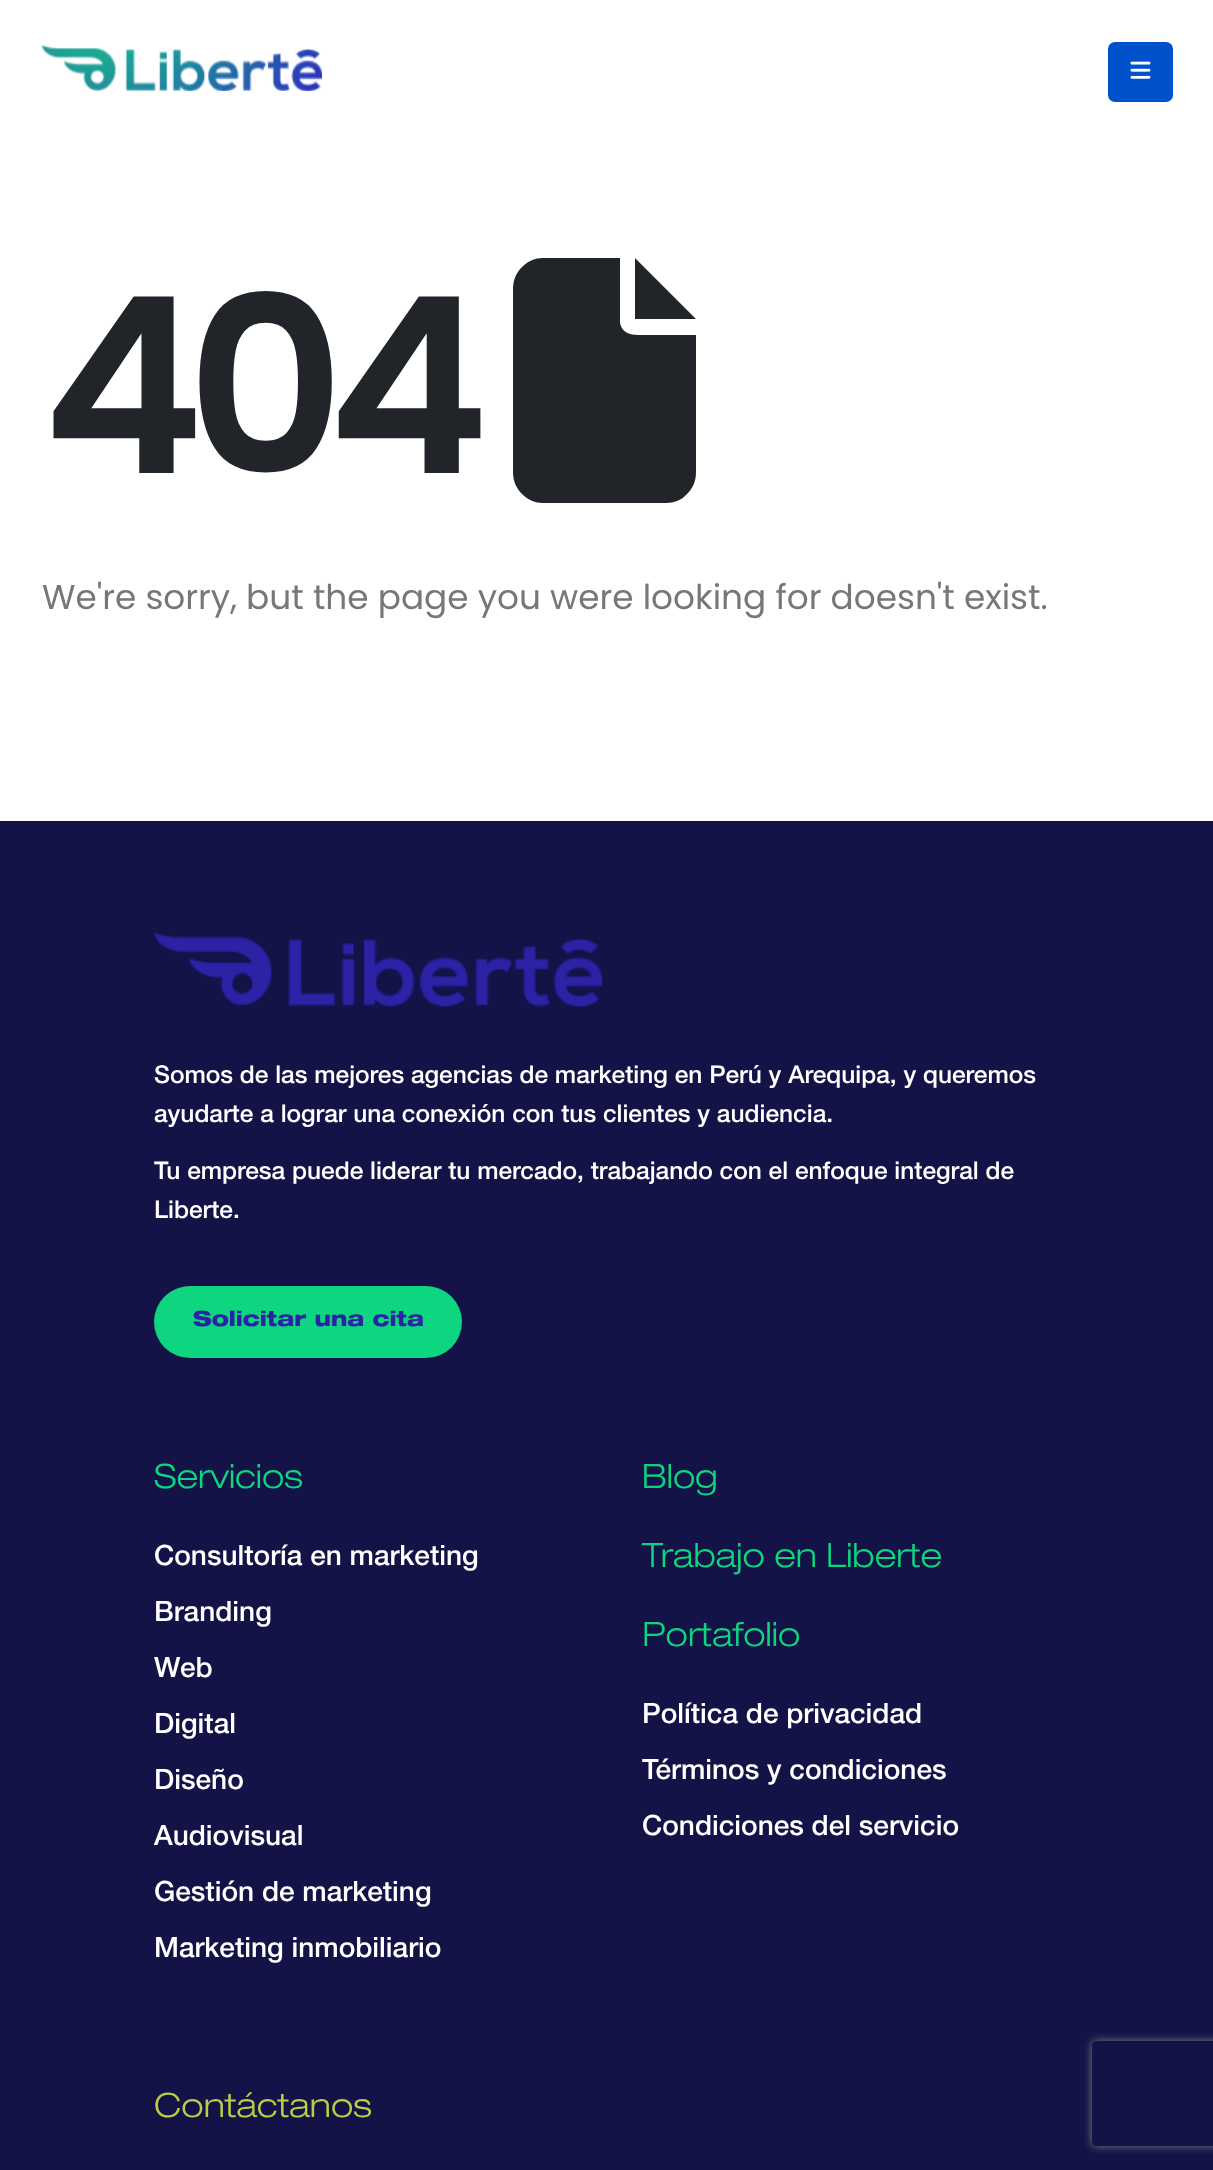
<!DOCTYPE html>
<meta charset="utf-8">
<style>body { margin: 0 } canvas { display: block }</style>
<canvas id="canvas" width="1213" height="2170"></canvas>
<script type="module">
  const canvas = document.getElementById("canvas");
  const g = canvas.getContext("2d");
  g.miterLimit = 4;
  g.fontKerning = "normal";
  function drawText(s, x, y, [font, color]) {
    g.font = font;
    g.fillStyle = color;
    g.fillText(s, x, y);
  }
  function fillBox(x, y, w, h, color) {
    g.fillStyle = color;
    g.fillRect(x, y, w, h);
  }
  function fillRounded(x, y, w, h, r, color) {
    g.fillStyle = color;
    g.beginPath();
    g.roundRect(x, y, w, h, r);
    g.fill();
  }
  async function drawPicture(src, x, y, w, h) {
    const img = new Image();
    img.src = src;
    await img.decode();
    g.drawImage(img, x, y, w, h);
  }

  const s1 = ["600 245px Poppins", "#212529"];
  const s2 = ["34.3px Poppins", "#777777"];
  const s3 = ["500 24.5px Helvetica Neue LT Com", "#FFFFFF"];
  const s4 = ["bold 21px Helvetica Neue", "#2B22A6"];
  const s5 = ["300 33.5px Helvetica Neue LT Com", "#0DD580"];
  const s6 = ["500 28px Helvetica Neue LT Com", "#FFFFFF"];
  const s7 = ["300 33.5px Helvetica Neue LT Com", "#BBCE44"];

  fillBox(0, 0, 1213, 2170, "#FFFFFF");
  await drawPicture("pic1.png", 42, 45, 280, 46);
  fillRounded(1108, 42, 65, 60, 7, "#0052CC");
  await drawPicture("pic2.png", 1130, 61, 21, 18);
  g.letterSpacing = "-17.5px";
  drawText("404", 42, 473, s1);
  g.beginPath();
  g.moveTo(513, 289);
  g.bezierCurveTo(513, 280, 516, 273, 522, 267);
  g.bezierCurveTo(528, 261, 535, 258, 543, 258);
  g.lineTo(620, 258);
  g.lineTo(620, 323);
  g.bezierCurveTo(623, 336, 635, 335, 645, 335);
  g.lineTo(696, 335);
  g.lineTo(696, 472);
  g.bezierCurveTo(696, 481, 693, 488, 687, 494);
  g.bezierCurveTo(682, 500, 674, 503, 666, 503);
  g.lineTo(543, 503);
  g.bezierCurveTo(535, 503, 528, 500, 522, 494);
  g.bezierCurveTo(516, 488, 513, 481, 513, 472);
  g.closePath();
  g.moveTo(696, 319);
  g.lineTo(635, 319);
  g.lineTo(635, 258);
  g.closePath();
  g.fill();
  g.letterSpacing = "0px";
  drawText("We're sorry, but the page you were looking for doesn't exist.", 42, 609, s2);
  fillBox(0, 821, 1213, 1349, "#131347");
  await drawPicture("pic3.png", 154, 932, 448, 75);
  drawText("Somos de las mejores agencias de marketing en Perú y Arequipa, y queremos", 154, 1083, s3);
  drawText("ayudarte a lograr una conexión con tus clientes y audiencia.", 154, 1122, s3);
  drawText("Tu empresa puede liderar tu mercado, trabajando con el enfoque integral de", 154, 1179, s3);
  drawText("Liberte.", 154, 1218, s3);
  fillRounded(154, 1286, 308, 72, 36, "#0DD580");
  drawText("Solicitar una cita", 193, 1326, s4);
  drawText("Servicios", 154, 1488, s5);
  drawText("Consultoría en marketing", 154, 1565, s6);
  drawText("Branding", 154, 1621, s6);
  drawText("Web", 154, 1677, s6);
  drawText("Digital", 154, 1733, s6);
  drawText("Diseño", 154, 1789, s6);
  drawText("Audiovisual", 154, 1845, s6);
  drawText("Gestión de marketing", 154, 1901, s6);
  drawText("Marketing inmobiliario", 154, 1957, s6);
  drawText("Blog", 642, 1488, s5);
  drawText("Trabajo en Liberte", 642, 1567, s5);
  drawText("Portafolio", 642, 1646, s5);
  drawText("Política de privacidad", 642, 1723, s6);
  drawText("Términos y condiciones", 642, 1779, s6);
  drawText("Condiciones del servicio", 642, 1835, s6);
  drawText("Contáctanos", 154, 2117, s7);
  g.save();
  g.beginPath();
  g.moveTo(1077, 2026);
  g.lineTo(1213, 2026);
  g.lineTo(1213, 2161);
  g.lineTo(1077, 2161);
  g.closePath();
  g.moveTo(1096, 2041);
  g.lineTo(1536, 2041);
  g.bezierCurveTo(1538, 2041, 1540, 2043, 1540, 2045);
  g.lineTo(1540, 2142);
  g.bezierCurveTo(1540, 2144, 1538, 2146, 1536, 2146);
  g.lineTo(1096, 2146);
  g.bezierCurveTo(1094, 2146, 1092, 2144, 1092, 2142);
  g.lineTo(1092, 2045);
  g.bezierCurveTo(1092, 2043, 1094, 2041, 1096, 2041);
  g.closePath();
  g.clip("evenodd");
  g.fillStyle = "#808080";
  g.filter = "blur(4.5px)";
  g.beginPath();
  g.roundRect(1092, 2041, 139, 105, 4);
  g.fill();
  g.filter = "none";
  g.restore();
</script>
